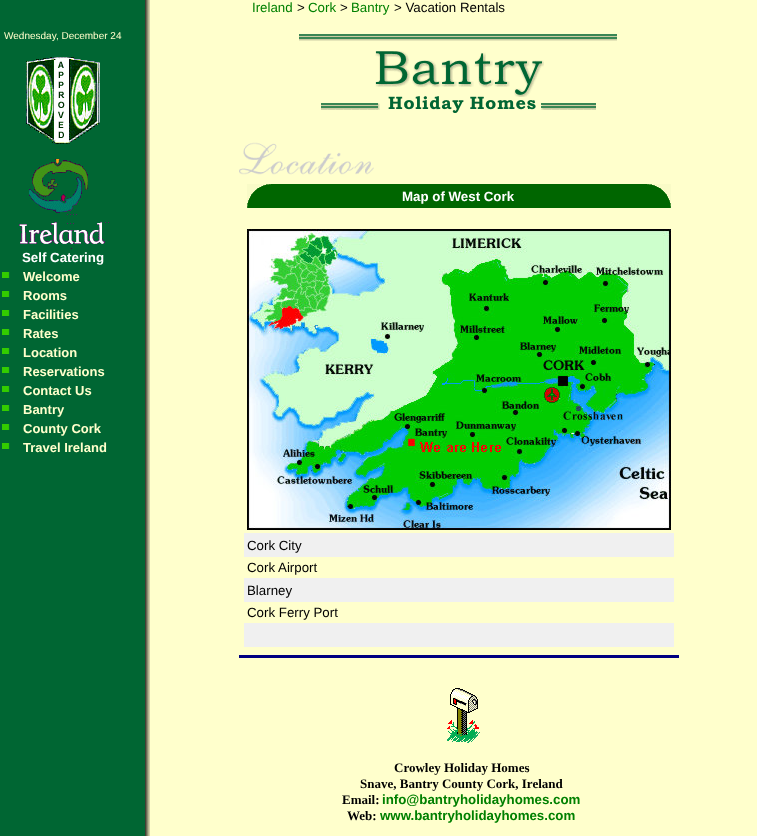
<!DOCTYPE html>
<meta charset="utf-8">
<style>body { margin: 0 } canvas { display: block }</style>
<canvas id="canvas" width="757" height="836"></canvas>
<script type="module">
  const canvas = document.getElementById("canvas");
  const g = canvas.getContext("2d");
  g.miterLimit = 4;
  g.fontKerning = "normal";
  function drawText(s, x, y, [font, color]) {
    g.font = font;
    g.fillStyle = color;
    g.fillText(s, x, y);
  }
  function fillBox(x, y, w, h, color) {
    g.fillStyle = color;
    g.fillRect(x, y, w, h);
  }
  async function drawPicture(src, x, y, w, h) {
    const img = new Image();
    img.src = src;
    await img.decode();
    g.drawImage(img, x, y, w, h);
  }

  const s1 = ["13.3px Liberation Sans", "#008000"];
  const s2 = ["13.3px Liberation Sans", "#000000"];
  const s3 = ["10px Liberation Sans", "#FFFFCC"];
  const s4 = ["bold 13.3px Liberation Sans", "#FFFFFF"];
  const s5 = ["bold 13px Liberation Sans", "#FFFFCC"];
  const s6 = ["bold 13px Liberation Serif", "#000000"];
  const s7 = ["bold 13.3px Liberation Sans", "#008000"];

  fillBox(0, 0, 757, 836, "#FFFFCC");
  await drawPicture("pic1.png", 0, 0, 150, 836);
  drawText("Ireland", 252, 12, s1);
  drawText(">", 297, 12, s2);
  drawText("Cork", 308, 12, s1);
  drawText(">", 340, 12, s2);
  drawText("Bantry", 351, 12, s1);
  drawText("> Vacation Rentals", 394, 12, s2);
  drawText("Wednesday, December 24", 4, 39, s3);
  await drawPicture("pic2.png", 26, 57, 74, 87);
  await drawPicture("pic3.png", 19, 159, 90, 90);
  drawText("Self Catering", 22, 262, s4);
  await drawPicture("pic4.png", 2, 272, 8, 6);
  drawText("Welcome", 23, 281, s5);
  await drawPicture("pic4.png", 2, 291, 8, 6);
  drawText("Rooms", 23, 300, s5);
  await drawPicture("pic4.png", 2, 310, 8, 6);
  drawText("Facilities", 23, 319, s5);
  await drawPicture("pic4.png", 2, 329, 8, 6);
  drawText("Rates", 23, 338, s5);
  await drawPicture("pic4.png", 2, 348, 8, 6);
  drawText("Location", 23, 357, s5);
  await drawPicture("pic4.png", 2, 367, 8, 6);
  drawText("Reservations", 23, 376, s5);
  await drawPicture("pic4.png", 2, 386, 8, 6);
  drawText("Contact Us", 23, 395, s5);
  await drawPicture("pic4.png", 2, 405, 8, 6);
  drawText("Bantry", 23, 414, s5);
  await drawPicture("pic4.png", 2, 424, 8, 6);
  drawText("County Cork", 23, 433, s5);
  await drawPicture("pic4.png", 2, 443, 8, 6);
  drawText("Travel Ireland", 23, 452, s5);
  await drawPicture("pic5.png", 299, 34, 318, 79);
  await drawPicture("pic6.png", 239, 142, 135, 33);
  fillBox(271, 184, 376, 24, "#006600");
  await drawPicture("pic7.png", 247, 184, 24, 24);
  drawText("Map of West Cork", 402, 201, s4);
  await drawPicture("pic8.png", 647, 184, 24, 24);
  await drawPicture("pic9.png", 247, 229, 424, 301);
  fillBox(244, 533, 430, 24, "#F0F0F0");
  drawText("Cork City", 247, 550, s2);
  drawText("Cork Airport", 247, 572, s2);
  fillBox(244, 578, 430, 24, "#F0F0F0");
  drawText("Blarney", 247, 595, s2);
  drawText("Cork Ferry Port", 247, 617, s2);
  fillBox(244, 623, 430, 24, "#F0F0F0");
  fillBox(240, 656, 438, 2, "#000080");
  fillBox(239, 655, 440, 1, "#000080");
  fillBox(678, 655, 1, 3, "#000080");
  fillBox(239, 655, 1, 3, "#000080");
  await drawPicture("pic10.png", 447, 688, 33, 55);
  drawText("Crowley Holiday Homes", 394, 772, s6);
  drawText("Snave, Bantry County Cork, Ireland", 360, 788, s6);
  drawText("Email:", 342, 804, s6);
  drawText("info@bantryholidayhomes.com", 382, 804, s7);
  drawText("Web:", 347, 820, s6);
  drawText("www.bantryholidayhomes.com", 380, 820, s7);
</script>
